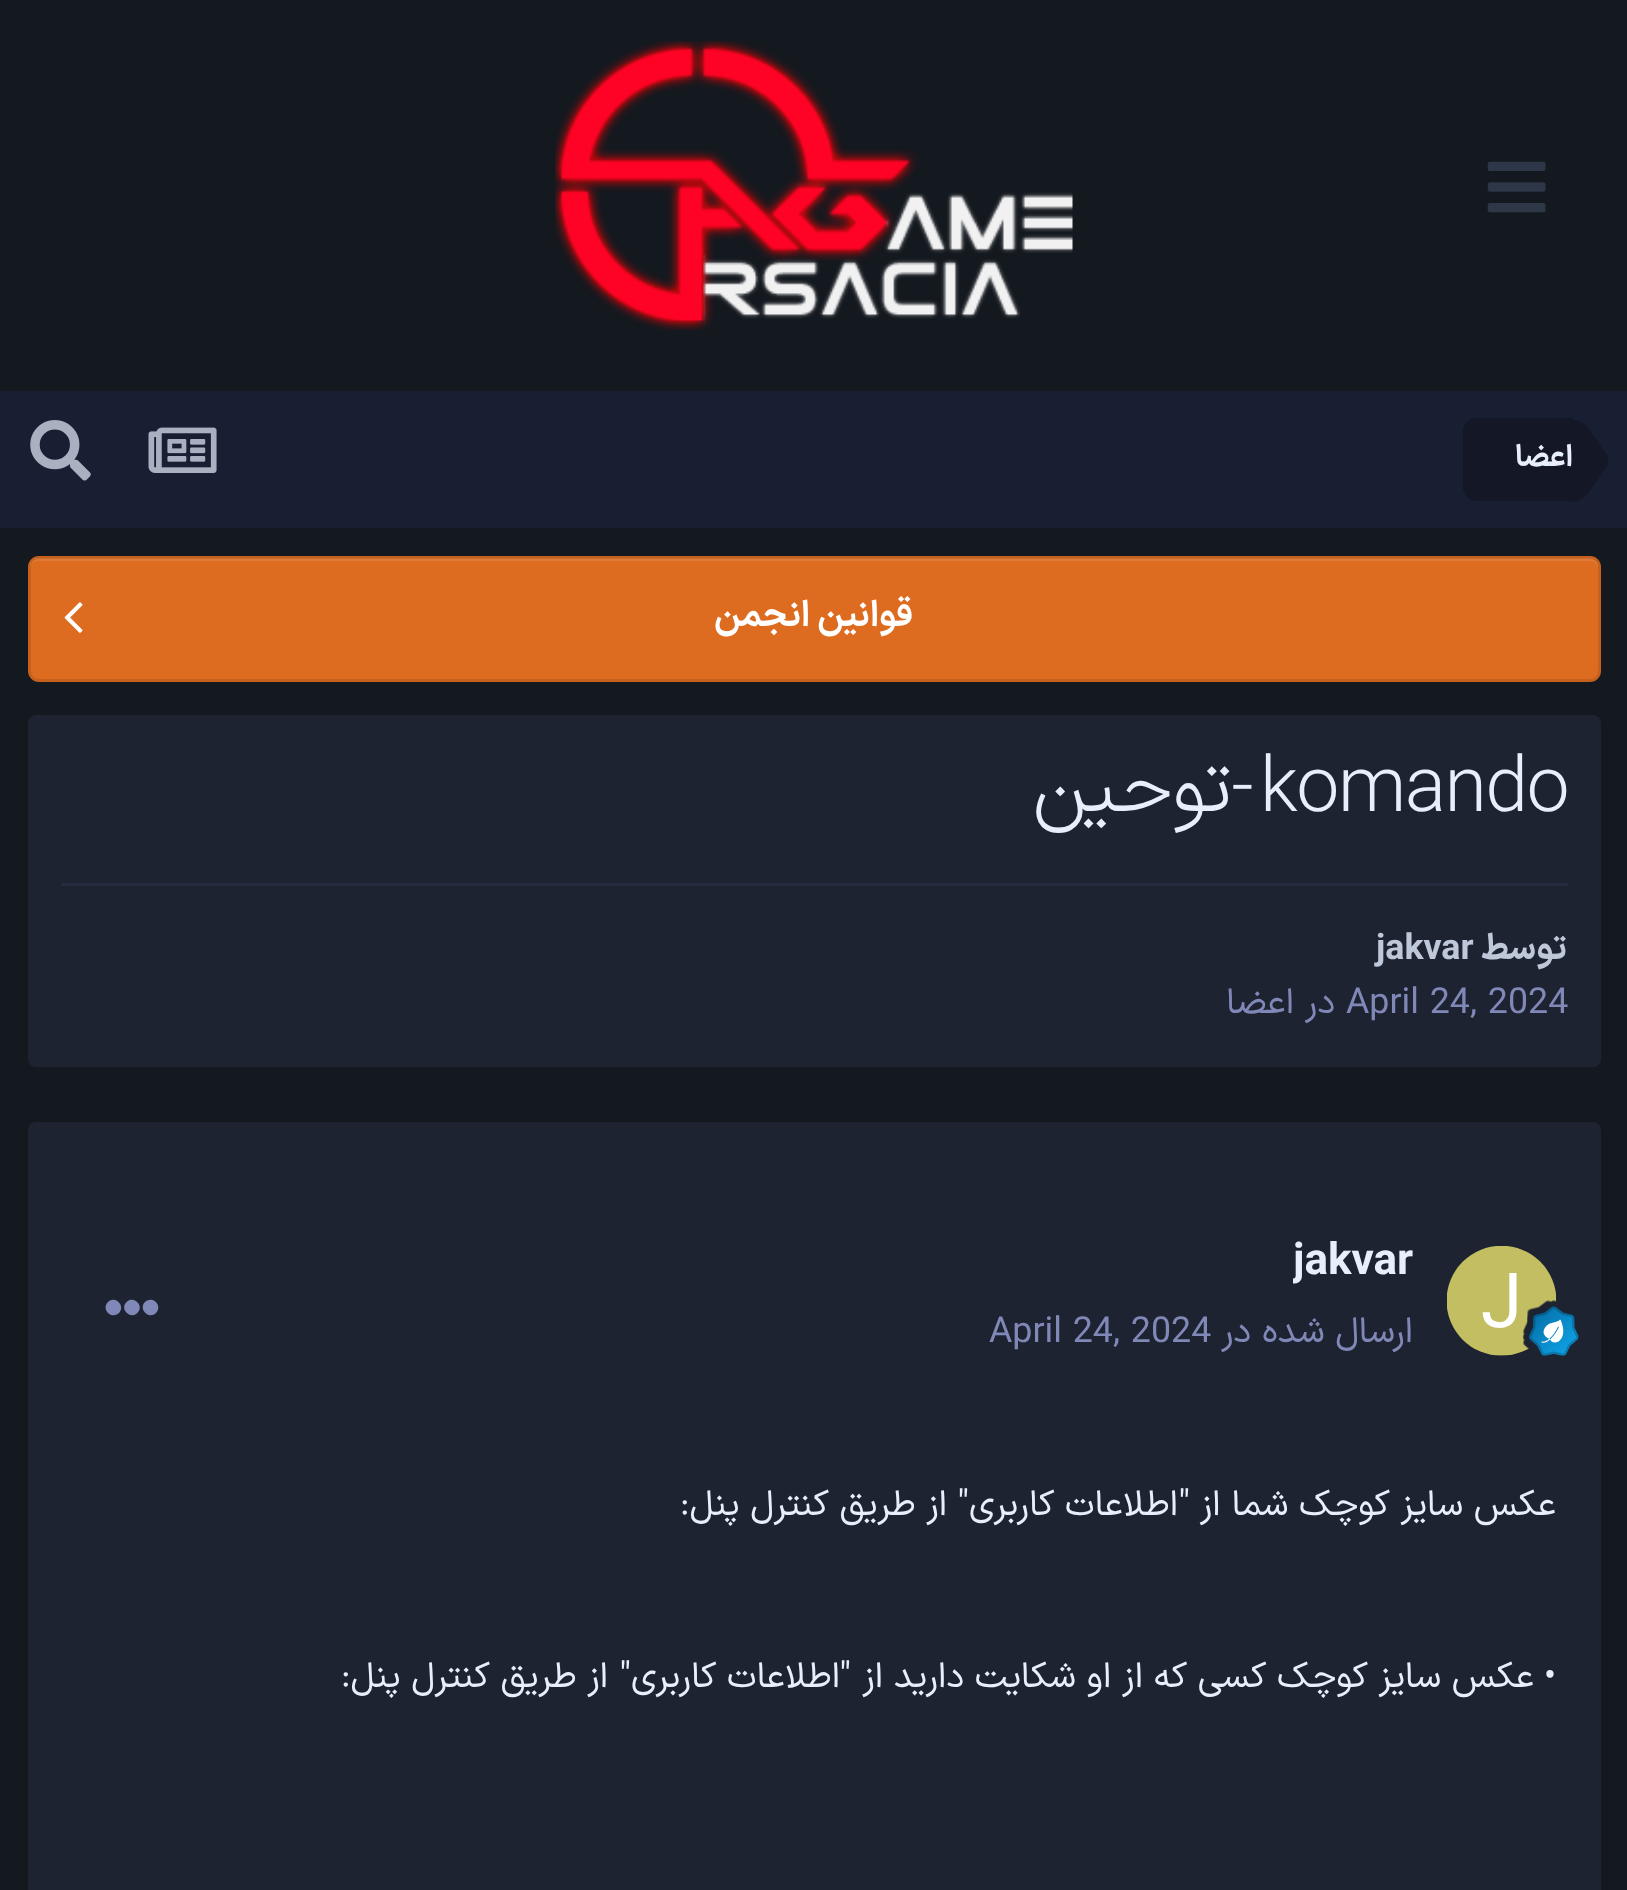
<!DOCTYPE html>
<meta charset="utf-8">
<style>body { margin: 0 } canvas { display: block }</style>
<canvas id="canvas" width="1627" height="1890"></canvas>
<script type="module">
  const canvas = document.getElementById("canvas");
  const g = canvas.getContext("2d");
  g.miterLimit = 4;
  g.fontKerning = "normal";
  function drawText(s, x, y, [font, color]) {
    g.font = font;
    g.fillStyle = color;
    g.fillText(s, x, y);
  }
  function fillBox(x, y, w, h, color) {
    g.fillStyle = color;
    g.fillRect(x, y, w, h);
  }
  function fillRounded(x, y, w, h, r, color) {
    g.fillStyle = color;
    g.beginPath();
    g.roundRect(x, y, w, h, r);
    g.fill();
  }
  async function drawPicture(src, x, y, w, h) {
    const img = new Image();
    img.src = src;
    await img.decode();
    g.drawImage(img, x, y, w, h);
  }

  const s1 = ["bold 30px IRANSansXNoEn", "#E8EFFC"];
  const s2 = ["bold 35.75px IRANSansXNoEn", "#FFFFFF"];
  const s3 = ["300 77px Roboto", "#E8EFFC"];
  const s4 = ["300 77px IRANSansXNoEn", "#E8EFFC"];
  const s5 = ["bold 35.75px IRANSansXNoEn", "#BFC8D9"];
  const s6 = ["bold 35.75px Roboto", "#BFC8D9"];
  const s7 = ["35.75px Roboto", "#8088B8"];
  const s8 = ["35.75px IRANSansXNoEn", "#8088B8"];
  const s9 = ["bold 44px Roboto", "#E8EFFC"];
  const s10 = ["35.75px IRANSansXNoEn", "#E8EFFC"];
  const s11 = ["35.75px Roboto", "#E8EFFC"];

  fillBox(0, 0, 1627, 1890, "#14191F");
  await drawPicture("pic1.png", 1487, 161, 59, 52);
  await drawPicture("pic2.png", 555, 41, 518, 289);
  fillBox(0, 391, 1627, 137, "#191F33");
  g.fillStyle = "#131726";
  g.beginPath();
  g.roundRect(1463, 418, 110, 83, [14, 0, 0, 14]);
  g.fill();
  g.beginPath();
  g.moveTo(1573, 420);
  g.bezierCurveTo(1579, 420, 1584, 423, 1589, 429);
  g.lineTo(1607, 455);
  g.bezierCurveTo(1608, 457, 1609, 459, 1608, 461);
  g.lineTo(1573, 461);
  g.closePath();
  g.fill();
  g.beginPath();
  g.moveTo(1608, 461);
  g.bezierCurveTo(1608, 463, 1608, 465, 1607, 466);
  g.lineTo(1589, 492);
  g.bezierCurveTo(1584, 498, 1579, 502, 1573, 502);
  g.lineTo(1573, 461);
  g.closePath();
  g.fill();
  g.direction = "rtl";
  drawText("اعضا", 1573, 466, s1);
  await drawPicture("pic3.png", 148, 427, 69, 46);
  await drawPicture("pic4.png", 30, 420, 61, 61);
  fillRounded(28, 556, 1573, 126, 11, "#DD6B20");
  g.fillStyle = "#E07A36";
  g.beginPath();
  g.moveTo(38, 561);
  g.lineTo(1590, 561);
  g.bezierCurveTo(1594, 561, 1598, 565, 1598, 569);
  g.lineTo(1598, 566);
  g.bezierCurveTo(1598, 562, 1594, 558, 1590, 558);
  g.lineTo(38, 558);
  g.bezierCurveTo(34, 558, 30, 562, 30, 566);
  g.lineTo(30, 569);
  g.bezierCurveTo(30, 565, 34, 561, 38, 561);
  g.closePath();
  g.fill();
  g.beginPath();
  g.roundRect(29.5, 557.5, 1570, 123, 9.5);
  g.strokeStyle = "rgba(0, 0, 0, 0.1)";
  g.lineWidth = 3;
  g.stroke();
  drawText("قوانین انجمن", 913, 626, s2);
  await drawPicture("pic5.png", 64, 602, 19, 31);
  fillRounded(28, 715, 1573, 352, 8, "#1D2331");
  g.letterSpacing = "-1.5px";
  g.direction = "ltr";
  drawText("komando", 1260, 811, s3);
  g.direction = "rtl";
  drawText("-", 1252, 811, s3);
  drawText("توحین", 1231, 811, s4);
  fillBox(61, 883, 1507, 3, "#232B3D");
  g.letterSpacing = "0px";
  drawText("توسط", 1567, 959, s5);
  g.direction = "ltr";
  drawText("jakvar", 1376, 959, s6);
  g.wordSpacing = "2px";
  drawText("April 24, 2024", 1346, 1013, s7);
  g.wordSpacing = "0px";
  g.direction = "rtl";
  drawText("در", 1335, 1013, s8);
  drawText("اعضا", 1294, 1013, s8);
  fillRounded(28, 1122, 1573, 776, 8, "#1D2331");
  g.fillStyle = "#141A28";
  g.beginPath();
  g.arc(1502, 1301, 55, 0, Math.PI * 2);
  g.fill();
  await drawPicture("pic6.png", 1447, 1246, 110, 110);
  await drawPicture("pic7.png", 1523, 1300, 56, 56);
  g.save();
  g.beginPath();
  g.rect(1293, 1238, 121, 49);
  g.clip();
  g.direction = "ltr";
  drawText("jakvar", 1293, 1274, s9);
  g.restore();
  drawText("ارسال شده در", 1413, 1342, s8);
  g.wordSpacing = "2px";
  g.direction = "ltr";
  drawText("April 24, 2024", 989, 1342, s7);
  g.beginPath();
  g.moveTo(137, 1302);
  g.bezierCurveTo(145, 1309, 134, 1320, 127, 1313);
  g.bezierCurveTo(119, 1306, 130, 1295, 137, 1302);
  g.closePath();
  g.moveTo(145, 1302);
  g.bezierCurveTo(153, 1295, 163, 1306, 156, 1313);
  g.bezierCurveTo(149, 1320, 138, 1309, 145, 1302);
  g.closePath();
  g.moveTo(108, 1302);
  g.bezierCurveTo(115, 1295, 126, 1306, 119, 1313);
  g.bezierCurveTo(111, 1320, 101, 1309, 108, 1302);
  g.closePath();
  g.fill();
  g.wordSpacing = "0px";
  g.direction = "rtl";
  drawText("عکس سایز کوچک شما از", 1556, 1515, s10);
  drawText("\"", 1190, 1515, s11);
  drawText("اطلاعات کاربری", 1178, 1515, s10);
  drawText("\"", 969, 1515, s11);
  drawText("از طریق کنترل پنل:", 947, 1515, s10);
  drawText("•", 1556, 1687, s11);
  drawText("عکس سایز کوچک کسی که از او شکایت دارید از", 1534, 1687, s10);
  drawText("\"", 851, 1687, s11);
  drawText("اطلاعات کاربری", 840, 1687, s10);
  drawText("\"", 631, 1687, s11);
  drawText("از طریق کنترل پنل:", 608, 1687, s10);
</script>
